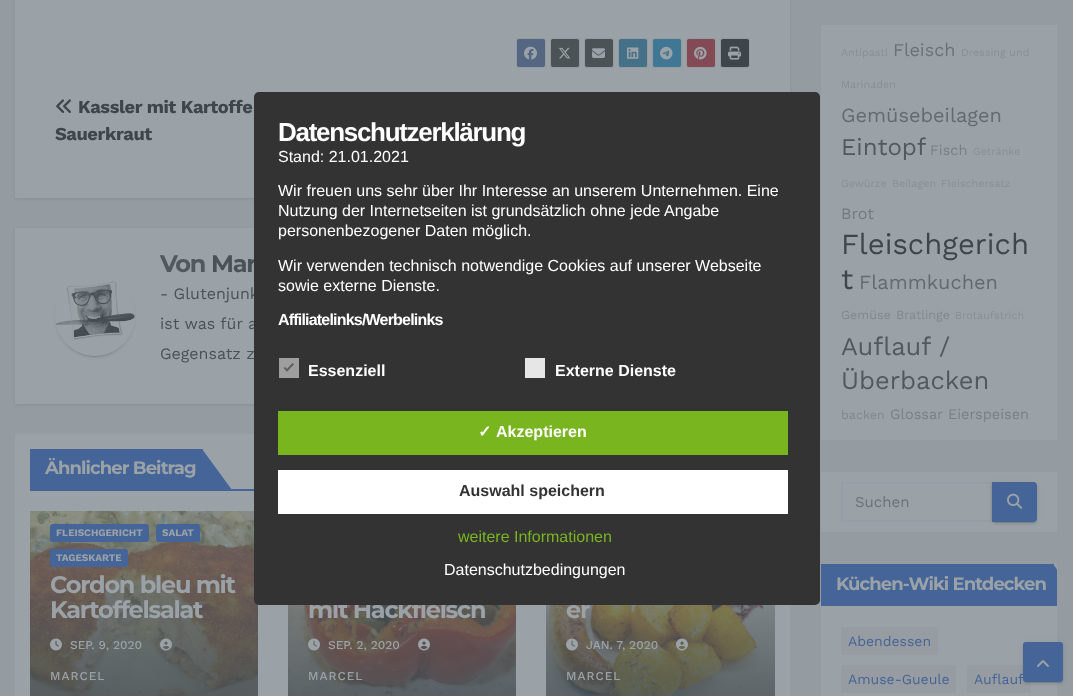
<!DOCTYPE html>
<meta charset="utf-8">
<style>body { margin: 0 } canvas { display: block }</style>
<canvas id="canvas" width="1073" height="696"></canvas>
<script type="module">
  const canvas = document.getElementById("canvas");
  const g = canvas.getContext("2d");
  g.miterLimit = 4;
  g.fontKerning = "normal";
  function drawText(s, x, y, [font, color]) {
    g.font = font;
    g.fillStyle = color;
    g.fillText(s, x, y);
  }
  function fillBox(x, y, w, h, color) {
    g.fillStyle = color;
    g.fillRect(x, y, w, h);
  }
  function fillRounded(x, y, w, h, r, color) {
    g.fillStyle = color;
    g.beginPath();
    g.roundRect(x, y, w, h, r);
    g.fill();
  }
  async function drawPicture(src, x, y, w, h) {
    const img = new Image();
    img.src = src;
    await img.decode();
    g.drawImage(img, x, y, w, h);
  }

  const s1 = ["bold 18.25px Work Sans", "#3F464B"];
  const s2 = ["bold 24px Montserrat", "#51595D"];
  const s3 = ["bold 24px Montserrat", "#4B5257"];
  const s4 = ["16px Work Sans", "#4B5257"];
  const s5 = ["bold 18px Montserrat", "#9BA2A7"];
  const s6 = ["bold 10px Work Sans", "#9BA2A7"];
  const s7 = ["bold 24px Montserrat", "#9BA2A7"];
  const s8 = ["500 12px Work Sans", "#9BA2A7"];
  const s9 = ["10.75px Work Sans", "#889094"];
  const s10 = ["18px Work Sans", "#6B7277"];
  const s11 = ["20px Work Sans", "#636B70"];
  const s12 = ["24px Work Sans", "#51595D"];
  const s13 = ["14.5px Work Sans", "#798186"];
  const s14 = ["16px Work Sans", "#727A7E"];
  const s15 = ["29.25px Work Sans", "#3F464B"];
  const s16 = ["12.5px Work Sans", "#81888D"];
  const s17 = ["25.5px Work Sans", "#51595D"];
  const s18 = ["15px Work Sans", "#6B7277"];
  const s19 = ["14px Work Sans", "#456497"];
  const s20 = ["bold 26px Liberation Sans", "#FFFFFF"];
  const s21 = ["16px Liberation Sans", "#FFFFFF"];
  const s22 = ["bold 16px Liberation Sans", "#FFFFFF"];
  const s23 = ["bold 16px DejaVu Sans", "#FFFFFF"];
  const s24 = ["bold 16px Liberation Sans", "#333333"];
  const s25 = ["16px Liberation Sans", "#79B51F"];

  fillBox(0, 0, 1073, 696, "#949CA1");
  g.fillStyle = "rgba(63, 70, 75, 0.15)";
  g.filter = "blur(1.5px)";
  g.beginPath();
  g.rect(15, -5, 775, 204);
  g.fill();
  g.filter = "none";
  fillBox(15, 0, 775, 198, "#9BA2A7");
  g.fillStyle = "#546682";
  g.beginPath();
  g.roundRect(516.5, 38.5, 29, 29, 2.5);
  g.fill();
  g.strokeStyle = "#939B9F";
  g.stroke();
  await drawPicture("pic1.png", 524, 46, 13, 14);
  g.fillStyle = "#4B5357";
  g.beginPath();
  g.roundRect(550.5, 38.5, 29, 29, 2.5);
  g.fill();
  g.stroke();
  await drawPicture("pic2.png", 558, 47, 13, 12);
  g.beginPath();
  g.roundRect(584.5, 38.5, 29, 29, 2.5);
  g.fill();
  g.stroke();
  await drawPicture("pic3.png", 592, 48, 13, 10);
  g.fillStyle = "#447187";
  g.beginPath();
  g.roundRect(618.5, 38.5, 29, 29, 2.5);
  g.fill();
  g.stroke();
  await drawPicture("pic4.png", 627, 47, 12, 12);
  g.fillStyle = "#3F7794";
  g.beginPath();
  g.roundRect(652.5, 38.5, 29, 29, 2.5);
  g.fill();
  g.stroke();
  await drawPicture("pic5.png", 660, 46, 13, 14);
  g.fillStyle = "#834955";
  g.beginPath();
  g.roundRect(686.5, 38.5, 29, 29, 2.5);
  g.fill();
  g.stroke();
  await drawPicture("pic6.png", 694, 46, 13, 14);
  g.fillStyle = "#3F464B";
  g.beginPath();
  g.roundRect(720.5, 38.5, 29, 29, 2.5);
  g.fill();
  g.stroke();
  await drawPicture("pic7.png", 728, 46, 13, 14);
  await drawPicture("pic8.png", 56, 99, 15, 14);
  g.letterSpacing = "-0.4px";
  drawText("Kassler mit Kartoffe", 78, 113, s1);
  drawText("Sauerkraut", 55, 140, s1);
  g.fillStyle = "rgba(63, 70, 75, 0.15)";
  g.filter = "blur(1.5px)";
  g.beginPath();
  g.rect(15, 229, 775, 176);
  g.fill();
  g.filter = "none";
  fillBox(15, 228, 239, 176, "#9BA2A7");
  g.save();
  g.beginPath();
  g.moveTo(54, 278);
  g.lineTo(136, 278);
  g.lineTo(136, 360);
  g.lineTo(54, 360);
  g.closePath();
  g.moveTo(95, 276);
  g.bezierCurveTo(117, 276, 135, 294, 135, 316);
  g.bezierCurveTo(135, 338, 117, 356, 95, 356);
  g.bezierCurveTo(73, 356, 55, 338, 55, 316);
  g.bezierCurveTo(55, 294, 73, 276, 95, 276);
  g.closePath();
  g.clip("evenodd");
  g.fillStyle = "rgba(63, 70, 75, 0.2)";
  g.filter = "blur(0.5px)";
  g.beginPath();
  g.roundRect(57, 281, 76, 76, 38);
  g.fill();
  g.filter = "none";
  g.restore();
  g.save();
  g.beginPath();
  g.moveTo(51, 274);
  g.lineTo(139, 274);
  g.lineTo(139, 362);
  g.lineTo(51, 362);
  g.closePath();
  g.moveTo(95, 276);
  g.bezierCurveTo(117, 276, 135, 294, 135, 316);
  g.bezierCurveTo(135, 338, 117, 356, 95, 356);
  g.bezierCurveTo(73, 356, 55, 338, 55, 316);
  g.bezierCurveTo(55, 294, 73, 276, 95, 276);
  g.closePath();
  g.clip("evenodd");
  g.fillStyle = "rgba(63, 70, 75, 0.14)";
  g.filter = "blur(1px)";
  g.beginPath();
  g.roundRect(55, 278, 80, 80, 40);
  g.fill();
  g.filter = "none";
  g.restore();
  await drawPicture("pic9.png", 56, 281, 79, 59);
  g.letterSpacing = "-1.25px";
  drawText("Von", 160, 272, s2);
  drawText("Mar", 211, 272, s3);
  g.letterSpacing = "0px";
  drawText("- Glutenjunk", 160, 299, s4);
  drawText("ist was für a", 160, 329, s4);
  drawText("Gegensatz z", 160, 359, s4);
  fillBox(15, 434, 775, 262, "#9BA2A7");
  fillBox(30, 489, 224, 2, "#456497");
  fillBox(30, 449, 173, 40, "#456497");
  g.letterSpacing = "-0.9px";
  drawText("Ähnlicher Beitrag", 45, 474, s5);
  g.fillStyle = "#456497";
  g.beginPath();
  g.moveTo(232, 490);
  g.lineTo(202, 490);
  g.lineTo(202, 449);
  g.closePath();
  g.fill();
  await drawPicture("pic10.png", 30, 511, 228, 185);
  fillRounded(50, 524, 99, 18, 3, "#456497");
  g.letterSpacing = "0px";
  drawText("FLEISCHGERICHT", 56, 536, s6);
  fillRounded(156, 524, 44, 18, 3, "#456497");
  drawText("SALAT", 162, 536, s6);
  fillRounded(50, 549, 78, 18, 3, "#456497");
  drawText("TAGESKARTE", 56, 561, s6);
  g.letterSpacing = "-1.25px";
  drawText("Cordon bleu mit", 50, 593, s7);
  drawText("Kartoffelsalat", 50, 618, s7);
  await drawPicture("pic11.png", 50, 638, 12, 13);
  g.letterSpacing = "0px";
  drawText("SEP. 9, 2020", 70, 649, s8);
  await drawPicture("pic12.png", 160, 638, 12, 13);
  g.letterSpacing = "1px";
  drawText("MARCEL", 50, 680, s8);
  await drawPicture("pic13.png", 288, 605, 228, 91);
  g.letterSpacing = "-1.25px";
  drawText("mit Hackfleisch", 308, 618, s7);
  await drawPicture("pic14.png", 308, 638, 12, 13);
  g.letterSpacing = "0px";
  drawText("SEP. 2, 2020", 328, 649, s8);
  await drawPicture("pic15.png", 418, 638, 12, 13);
  g.letterSpacing = "1px";
  drawText("MARCEL", 308, 680, s8);
  await drawPicture("pic16.png", 546, 605, 229, 91);
  g.letterSpacing = "-1.25px";
  drawText("er", 566, 618, s7);
  await drawPicture("pic17.png", 566, 638, 12, 13);
  g.letterSpacing = "0px";
  drawText("JAN. 7, 2020", 586, 649, s8);
  await drawPicture("pic18.png", 676, 638, 12, 13);
  g.letterSpacing = "1px";
  drawText("MARCEL", 566, 680, s8);
  fillBox(821, 25, 236, 415, "#9BA2A7");
  g.letterSpacing = "0px";
  drawText("Antipasti", 841, 56, s9);
  drawText("Fleisch", 893, 56, s10);
  drawText("Dressing und", 961, 56, s9);
  drawText("Marinaden", 841, 88, s9);
  drawText("Gemüsebeilagen", 841, 122, s11);
  drawText("Eintopf", 841, 155, s12);
  drawText("Fisch", 930, 155, s13);
  drawText("Getränke", 973, 155, s9);
  drawText("Gewürze", 841, 187, s9);
  drawText("Beilagen", 892, 187, s9);
  drawText("Fleischersatz", 941, 187, s9);
  drawText("Brot", 841, 219, s14);
  drawText("Fleischgerich", 841, 254, s15);
  drawText("t", 841, 289, s15);
  drawText("Flammkuchen", 859, 289, s11);
  drawText("Gemüse", 841, 319, s16);
  drawText("Bratlinge", 896, 319, s16);
  drawText("Brotaufstrich", 955, 319, s9);
  drawText("Auflauf /", 841, 355, s17);
  drawText("Überbacken", 841, 389, s17);
  drawText("backen", 841, 419, s16);
  drawText("Glossar", 890, 419, s13);
  drawText("Eierspeisen", 948, 419, s13);
  fillBox(821, 472, 236, 60, "#9BA2A7");
  g.strokeStyle = "#949EA5";
  g.lineWidth = 2;
  g.strokeRect(842, 483, 149, 38);
  drawText("Suchen", 855, 507, s18);
  g.fillStyle = "rgba(63, 70, 75, 0.12)";
  g.filter = "blur(2.5px)";
  g.beginPath();
  g.roundRect(992, 483, 45, 40, 4);
  g.fill();
  g.filter = "none";
  g.fillStyle = "rgba(63, 70, 75, 0.2)";
  g.filter = "blur(0.5px)";
  g.beginPath();
  g.roundRect(994, 487, 41, 36, 2);
  g.fill();
  g.filter = "none";
  g.fillStyle = "rgba(63, 70, 75, 0.14)";
  g.filter = "blur(1px)";
  g.beginPath();
  g.roundRect(992, 484, 45, 40, 4);
  g.fill();
  g.filter = "none";
  g.fillStyle = "#456497";
  g.beginPath();
  g.roundRect(992, 482, 45, 40, [0, 4, 4, 0]);
  g.fill();
  await drawPicture("pic19.png", 1007, 493, 16, 16);
  fillBox(821, 564, 236, 132, "#9BA2A7");
  fillBox(821, 604, 236, 2, "#456497");
  fillBox(821, 564, 233, 40, "#456497");
  g.letterSpacing = "-0.9px";
  drawText("Küchen-Wiki Entdecken", 836, 590, s5);
  g.save();
  g.beginPath();
  g.rect(821, 564, 236, 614);
  g.clip();
  g.fillStyle = "#456497";
  g.beginPath();
  g.moveTo(1053, 564);
  g.lineTo(1053, 606);
  g.lineTo(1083, 606);
  g.closePath();
  g.fill();
  g.restore();
  g.fillStyle = "#456497";
  g.beginPath();
  g.moveTo(1053, 606);
  g.lineTo(1056, 603);
  g.lineTo(1056, 569);
  g.lineTo(1053, 564);
  g.closePath();
  g.fill();
  fillRounded(841, 627, 97, 28, 3, "#969CA1");
  g.letterSpacing = "0px";
  drawText("Abendessen", 848, 646, s19);
  fillRounded(841, 665, 115, 28, 3, "#969CA1");
  drawText("Amuse-Gueule", 848, 684, s19);
  fillRounded(967, 665, 64, 28, 3, "#969CA1");
  drawText("Auflauf", 974, 684, s19);
  fillRounded(254, 92, 566, 513, 5, "#333333");
  g.letterSpacing = "-1.3px";
  drawText("Datenschutzerklärung", 278, 141, s20);
  g.letterSpacing = "0px";
  drawText("Stand: 21.01.2021", 278, 162, s21);
  drawText("Wir freuen uns sehr über Ihr Interesse an unserem Unternehmen. Eine", 278, 196, s21);
  drawText("Nutzung der Internetseiten ist grundsätzlich ohne jede Angabe", 278, 216, s21);
  drawText("personenbezogener Daten möglich.", 278, 236, s21);
  drawText("Wir verwenden technisch notwendige Cookies auf unserer Webseite", 278, 271, s21);
  drawText("sowie externe Dienste.", 278, 291, s21);
  g.letterSpacing = "-0.8px";
  drawText("Affiliatelinks/Werbelinks", 278, 325, s22);
  fillBox(279, 358, 20, 20, "#9E9E9E");
  g.fillStyle = "#5E5E5E";
  g.beginPath();
  g.moveTo(292.5, 363);
  g.lineTo(294, 364.5);
  g.lineTo(287, 371.5);
  g.lineTo(285.5, 370.5);
  g.closePath();
  g.fill();
  g.beginPath();
  g.moveTo(285, 367);
  g.lineTo(288.5, 370.5);
  g.lineTo(287, 371.5);
  g.lineTo(283.5, 368);
  g.closePath();
  g.fill();
  g.letterSpacing = "0px";
  drawText("Essenziell", 308, 376, s22);
  fillBox(525, 358, 20, 20, "#E6E6E6");
  drawText("Externe Dienste", 555, 376, s22);
  fillBox(278, 411, 510, 44, "#79B51F");
  drawText("✓", 478, 437, s23);
  drawText("Akzeptieren", 496, 437, s22);
  fillBox(278, 470, 510, 44, "#FFFFFF");
  drawText("Auswahl speichern", 459, 496, s24);
  drawText("weitere Informationen", 458, 542, s25);
  drawText("Datenschutzbedingungen", 444, 575, s21);
  g.fillStyle = "rgba(63, 70, 75, 0.12)";
  g.filter = "blur(2.5px)";
  g.beginPath();
  g.roundRect(1023, 643, 40, 40, 3);
  g.fill();
  g.filter = "none";
  g.fillStyle = "rgba(63, 70, 75, 0.2)";
  g.filter = "blur(0.5px)";
  g.beginPath();
  g.roundRect(1025, 647, 36, 36, 1);
  g.fill();
  g.filter = "none";
  g.fillStyle = "rgba(63, 70, 75, 0.14)";
  g.filter = "blur(1px)";
  g.beginPath();
  g.roundRect(1023, 644, 40, 40, 3);
  g.fill();
  g.filter = "none";
  g.fillStyle = "#456497";
  g.beginPath();
  g.roundRect(1024, 643, 38, 38, 2);
  g.fill();
  g.strokeStyle = "#456497";
  g.stroke();
  await drawPicture("pic20.png", 1037, 660, 12, 7);
</script>
